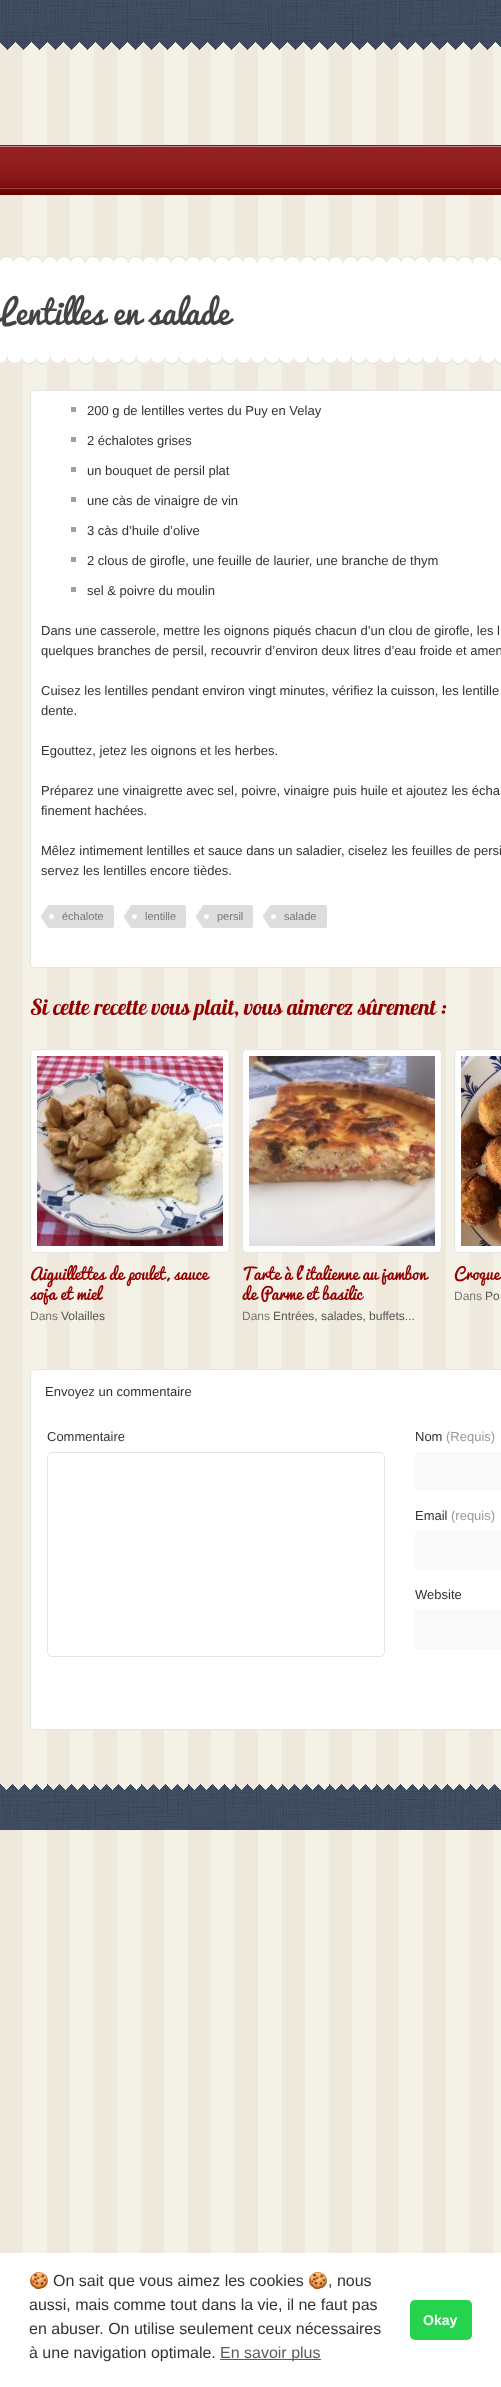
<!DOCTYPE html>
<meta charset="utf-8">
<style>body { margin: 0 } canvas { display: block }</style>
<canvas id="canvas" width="501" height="2387"></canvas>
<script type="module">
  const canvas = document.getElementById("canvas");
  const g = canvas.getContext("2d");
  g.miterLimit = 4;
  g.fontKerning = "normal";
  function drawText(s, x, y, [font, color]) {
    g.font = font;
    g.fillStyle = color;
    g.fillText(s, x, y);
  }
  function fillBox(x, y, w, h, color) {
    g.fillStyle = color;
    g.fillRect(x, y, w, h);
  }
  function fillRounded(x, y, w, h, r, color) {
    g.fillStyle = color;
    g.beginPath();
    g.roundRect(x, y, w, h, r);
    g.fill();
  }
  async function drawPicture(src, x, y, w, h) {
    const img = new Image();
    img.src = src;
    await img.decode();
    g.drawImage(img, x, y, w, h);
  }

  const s1 = ["32px Pacifico", "#444444"];
  const s2 = ["13px Liberation Sans", "#333333"];
  const s3 = ["11px Liberation Sans", "#777777"];
  const s4 = ["22px 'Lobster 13'", "#940000"];
  const s5 = ["16px Pacifico", "#940000"];
  const s6 = ["12px Liberation Sans", "#777777"];
  const s7 = ["12px Liberation Sans", "#555555"];
  const s8 = ["13px Liberation Sans", "#999999"];
  const s9 = ["16px Noto Color Emoji", "#333333"];
  const s10 = ["16px Liberation Sans", "#333333"];
  const s11 = ["16px Liberation Sans", "#5C5C5C"];
  const s12 = ["bold 14px Liberation Sans", "#FFFFFF"];

  fillBox(0, 0, 501, 2387, "#FFFFFF");
  await drawPicture("pic1.png", 0, 42, 501, 2211);
  await drawPicture("pic2.png", 0, 0, 501, 50);
  fillBox(0, 145, 501, 50, "#850000");
  await drawPicture("pic3.png", 0, 145, 501, 50);
  await drawPicture("pic4.png", 0, 255, 501, 110);
  drawText("Lentilles en salade", 0, 325, s1);
  g.fillStyle = "#FFFFFF";
  g.beginPath();
  g.roundRect(30.5, 390.5, 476, 577, 4.5);
  g.fill();
  g.strokeStyle = "#E5E5E5";
  g.stroke();
  fillBox(71, 407, 5, 5, "#A0A0A0");
  drawText("200 g de lentilles vertes du Puy en Velay", 87, 415, s2);
  fillBox(71, 437, 5, 5, "#A0A0A0");
  drawText("2 échalotes grises", 87, 445, s2);
  fillBox(71, 467, 5, 5, "#A0A0A0");
  drawText("un bouquet de persil plat", 87, 475, s2);
  fillBox(71, 497, 5, 5, "#A0A0A0");
  drawText("une càs de vinaigre de vin", 87, 505, s2);
  fillBox(71, 527, 5, 5, "#A0A0A0");
  drawText("3 càs d’huile d’olive", 87, 535, s2);
  fillBox(71, 557, 5, 5, "#A0A0A0");
  drawText("2 clous de girofle, une feuille de laurier, une branche de thym", 87, 565, s2);
  fillBox(71, 587, 5, 5, "#A0A0A0");
  drawText("sel & poivre du moulin", 87, 595, s2);
  drawText("Dans une casserole, mettre les oignons piqués chacun d’un clou de girofle, les l", 41, 635, s2);
  drawText("quelques branches de persil, recouvrir d’environ deux litres d’eau froide et amen", 41, 655, s2);
  drawText("Cuisez les lentilles pendant environ vingt minutes, vérifiez la cuisson, les lentille", 41, 695, s2);
  drawText("dente.", 41, 715, s2);
  drawText("Egouttez, jetez les oignons et les herbes.", 41, 755, s2);
  drawText("Préparez une vinaigrette avec sel, poivre, vinaigre puis huile et ajoutez les écha", 41, 795, s2);
  drawText("finement hachées.", 41, 815, s2);
  drawText("Mêlez intimement lentilles et sauce dans un saladier, ciselez les feuilles de persi", 41, 855, s2);
  drawText("servez les lentilles encore tièdes.", 41, 875, s2);
  await drawPicture("pic5.png", 41, 905, 73, 23);
  drawText("échalote", 62, 920, s3);
  await drawPicture("pic6.png", 124, 905, 62, 23);
  drawText("lentille", 145, 920, s3);
  await drawPicture("pic7.png", 196, 905, 57, 23);
  drawText("persil", 217, 920, s3);
  await drawPicture("pic8.png", 263, 905, 64, 23);
  drawText("salade", 284, 920, s3);
  drawText("Si cette recette vous plait, vous aimerez sûrement :", 30, 1015, s4);
  g.fillStyle = "#FFFFFF";
  g.beginPath();
  g.roundRect(30.5, 1049.5, 199, 203, 4.5);
  g.fill();
  g.stroke();
  await drawPicture("pic9.png", 37, 1056, 186, 190);
  drawText("Aiguillettes de poulet, sauce", 30, 1280, s5);
  drawText("soja et miel", 30, 1300, s5);
  drawText("Dans", 30, 1320, s6);
  drawText("Volailles", 61, 1320, s7);
  g.fillStyle = "#FFFFFF";
  g.beginPath();
  g.roundRect(242.5, 1049.5, 199, 203, 4.5);
  g.fill();
  g.stroke();
  await drawPicture("pic10.png", 249, 1056, 186, 190);
  drawText("Tarte à l’italienne au jambon", 242, 1280, s5);
  drawText("de Parme et basilic", 242, 1300, s5);
  drawText("Dans", 242, 1320, s6);
  drawText("Entrées, salades, buffets...", 273, 1320, s7);
  g.fillStyle = "#FFFFFF";
  g.beginPath();
  g.roundRect(454.5, 1049.5, 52, 203, 4.5);
  g.fill();
  g.stroke();
  await drawPicture("pic11.png", 461, 1056, 40, 190);
  drawText("Croque", 454, 1280, s5);
  drawText("Dans", 454, 1300, s6);
  drawText("Po", 485, 1300, s7);
  fillRounded(30, 1369, 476, 361, 5, "#FFFFFF");
  fillBox(31, 1370, 1, 1, "#FDFCFA");
  g.beginPath();
  g.roundRect(30.5, 1369.5, 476, 360, 4.5);
  g.stroke();
  drawText("Envoyez un commentaire", 45, 1396, s2);
  drawText("Commentaire", 47, 1441, s2);
  g.beginPath();
  g.roundRect(47.5, 1452.5, 337, 204, 4.5);
  g.stroke();
  drawText("Nom", 415, 1441, s2);
  drawText("(Requis)", 446, 1441, s8);
  fillBox(415, 1452, 86, 39, "#F9F9F9");
  drawText("Email", 415, 1520, s2);
  drawText("(requis)", 451, 1520, s8);
  fillBox(415, 1531, 86, 39, "#F9F9F9");
  drawText("Website", 415, 1599, s2);
  fillBox(415, 1610, 86, 39, "#F9F9F9");
  await drawPicture("pic12.png", 0, 1784, 501, 46);
  await drawPicture("pic13.png", 0, 1760, 501, 30);
  drawText("🍪", 29, 2286, s9);
  drawText("On sait que vous aimez les cookies", 53, 2286, s10);
  drawText("🍪", 308, 2286, s9);
  drawText(", nous", 328, 2286, s10);
  drawText("aussi, mais comme tout dans la vie, il ne faut pas", 29, 2310, s10);
  drawText("en abuser. On utilise seulement ceux nécessaires", 29, 2334, s10);
  drawText("à une navigation optimale.", 29, 2358, s10);
  fillBox(220, 2359, 101, 1, "#5C5C5C");
  drawText("En savoir plus", 220, 2358, s11);
  fillRounded(410, 2300, 62, 40, 5, "#25D34D");
  drawText("Okay", 423, 2325, s12);
</script>
